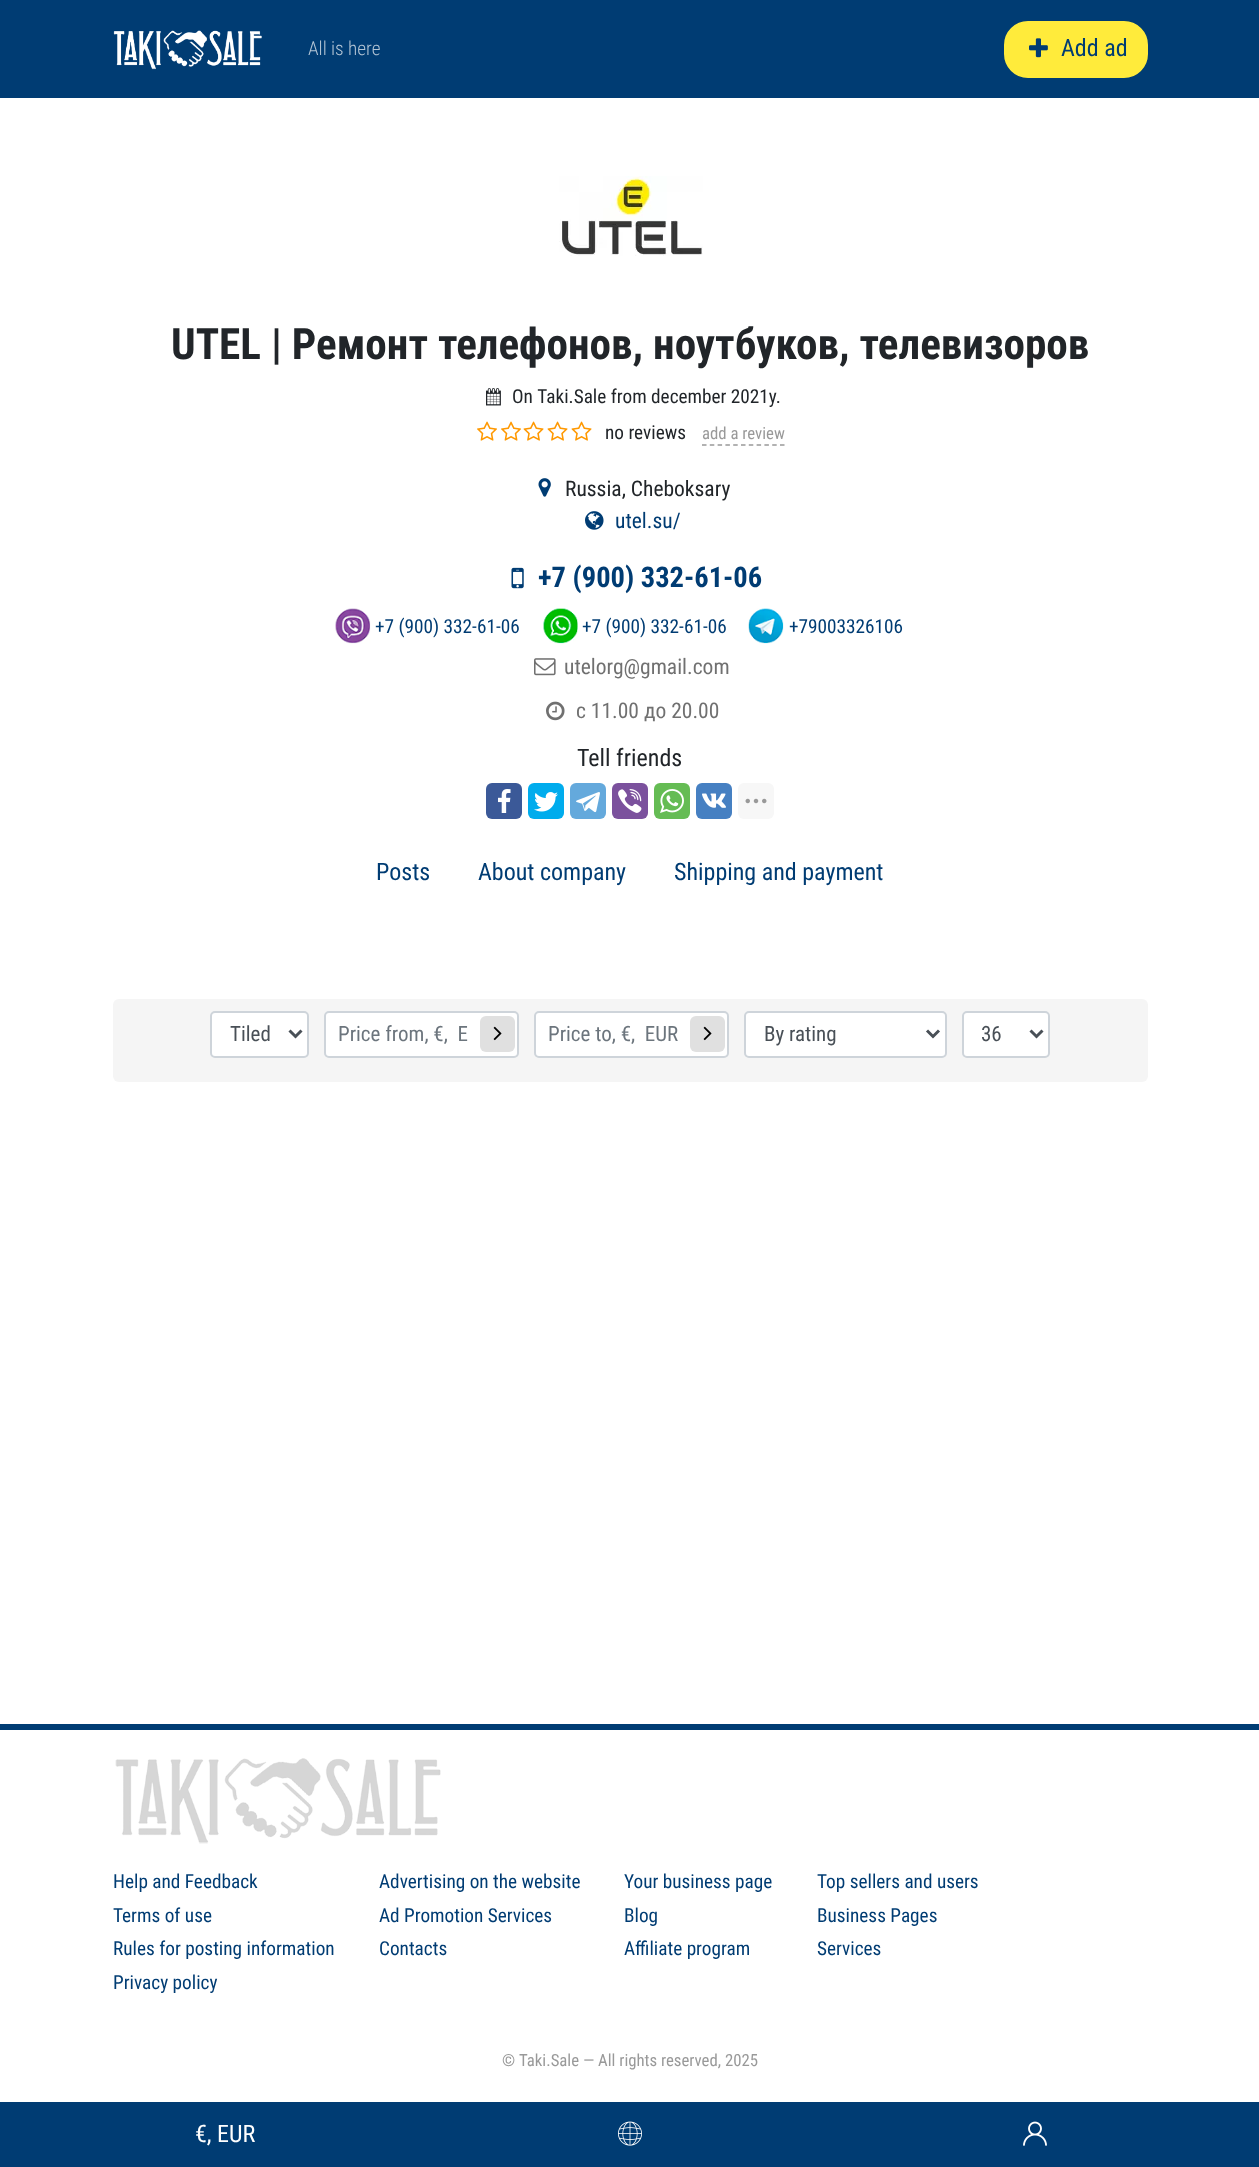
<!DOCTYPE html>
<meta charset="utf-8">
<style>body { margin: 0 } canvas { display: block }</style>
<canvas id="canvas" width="1259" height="2167"></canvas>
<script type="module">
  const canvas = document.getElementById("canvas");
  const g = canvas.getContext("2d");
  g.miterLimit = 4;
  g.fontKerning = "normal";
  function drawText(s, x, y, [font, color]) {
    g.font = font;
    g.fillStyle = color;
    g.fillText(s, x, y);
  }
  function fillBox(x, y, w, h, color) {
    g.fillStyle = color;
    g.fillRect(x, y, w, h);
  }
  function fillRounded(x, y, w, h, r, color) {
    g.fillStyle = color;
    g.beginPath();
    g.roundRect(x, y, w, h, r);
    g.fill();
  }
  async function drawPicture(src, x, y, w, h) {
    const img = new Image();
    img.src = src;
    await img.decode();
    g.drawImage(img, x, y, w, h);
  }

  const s1 = ["300 19.25px Roboto Condensed", "#B3C5D5"];
  const s2 = ["24px Roboto Condensed", "#003C73"];
  const s3 = ["24px Roboto Condensed", "#FFFFFF"];
  const s4 = ["bold 43.2px Roboto Condensed", "#212529"];
  const s5 = ["19.25px Roboto Condensed", "#212529"];
  const s6 = ["16.75px Roboto Condensed", "#999999"];
  const s7 = ["21.5px Roboto Condensed", "#212529"];
  const s8 = ["21.5px Roboto Condensed", "#003C73"];
  const s9 = ["bold 28.5px Roboto Condensed", "#003C73"];
  const s10 = ["19.25px Roboto Condensed", "#003C73"];
  const s11 = ["21.5px Roboto Condensed", "#707070"];
  const s12 = ["24px Roboto Condensed", "#212529"];
  const s13 = ["21px Roboto Condensed", "#495057"];
  const s14 = ["21px Roboto Condensed", "#6C757D"];

  fillBox(0, 0, 1259, 2167, "#FFFFFF");
  fillBox(0, 0, 1259, 98, "#003C73");
  await drawPicture("pic1.png", 113, 30, 149, 40);
  drawText("All is here", 308, 55, s1);
  g.fillStyle = "#FFEB3B";
  g.beginPath();
  g.roundRect(1005, 22, 142, 55, 23);
  g.fill();
  g.strokeStyle = "#FFEB3B";
  g.lineWidth = 2;
  g.stroke();
  await drawPicture("pic2.png", 1029, 38, 19, 20);
  drawText("Add ad", 1061, 56, s2);
  fillBox(0, 2102, 1259, 65, "#003C73");
  drawText("€, EUR", 195, 2142, s3);
  await drawPicture("pic3.png", 618, 2121, 24, 25);
  await drawPicture("pic4.png", 1023, 2121, 24, 25);
  await drawPicture("pic5.png", 559, 176, 144, 80);
  drawText("UTEL | Ремонт телефонов, ноутбуков, телевизоров", 171, 359, s4);
  await drawPicture("pic6.png", 486, 388, 15, 18);
  drawText("On Taki.Sale from december 2021y.", 512, 403, s5);
  await drawPicture("pic7.png", 477, 421, 20, 20);
  await drawPicture("pic7.png", 501, 421, 20, 20);
  await drawPicture("pic8.png", 523, 421, 21, 20);
  await drawPicture("pic8.png", 547, 421, 21, 20);
  await drawPicture("pic8.png", 571, 421, 21, 20);
  drawText("no reviews", 605, 439, s5);
  drawText("add a review", 702, 439, s6);
  g.beginPath();
  g.moveTo(702, 445);
  g.lineTo(784.5, 445);
  g.strokeStyle = "#999999";
  g.lineWidth = 1.5;
  g.setLineDash([4.5, 3.3]);
  g.stroke();
  await drawPicture("pic9.png", 538, 478, 13, 19);
  drawText("Russia, Cheboksary", 565, 496, s7);
  await drawPicture("pic10.png", 585, 511, 19, 19);
  drawText("utel.su/", 615, 528, s8);
  await drawPicture("pic11.png", 511, 567, 13, 22);
  drawText("+7 (900) 332-61-06", 538, 587, s9);
  await drawPicture("pic12.png", 335, 608, 36, 36);
  drawText("+7 (900) 332-61-06", 375, 633, s10);
  await drawPicture("pic13.png", 543, 608, 35, 36);
  drawText("+7 (900) 332-61-06", 582, 633, s10);
  await drawPicture("pic14.png", 748, 608, 36, 36);
  drawText("+79003326106", 789, 633, s10);
  await drawPicture("pic15.png", 534, 658, 22, 18);
  drawText("utelorg@gmail.com", 564, 674, s11);
  await drawPicture("pic16.png", 546, 701, 19, 20);
  drawText("с 11.00 до 20.00", 576, 718, s11);
  drawText("Tell friends", 577, 766, s12);
  fillRounded(486, 783, 36, 36, 6, "#3B5998");
  await drawPicture("pic17.png", 498, 789, 13, 24);
  fillRounded(528, 783, 36, 36, 6, "#00ACED");
  await drawPicture("pic18.png", 534, 792, 24, 20);
  fillRounded(570, 783, 36, 36, 6, "#64A9DC");
  await drawPicture("pic19.png", 576, 792, 24, 21);
  fillRounded(612, 783, 36, 36, 6, "#7B519D");
  await drawPicture("pic20.png", 618, 789, 24, 24);
  fillRounded(654, 783, 36, 36, 6, "#65BC54");
  await drawPicture("pic21.png", 660, 789, 24, 24);
  fillRounded(696, 783, 36, 36, 6, "#4680C2");
  await drawPicture("pic22.png", 702, 793, 24, 15);
  fillRounded(738, 783, 36, 36, 6, "#F7F7F7");
  await drawPicture("pic23.png", 745, 798, 22, 6);
  drawText("Posts", 376, 880, s2);
  drawText("About company", 478, 880, s2);
  drawText("Shipping and payment", 674, 880, s2);
  fillRounded(113, 999, 1035, 83, 6, "#F5F5F5");
  g.fillStyle = "#FFFFFF";
  g.beginPath();
  g.roundRect(211, 1012, 97, 45, 4);
  g.fill();
  g.strokeStyle = "#CED4DA";
  g.lineWidth = 2;
  g.setLineDash([]);
  g.stroke();
  g.beginPath();
  g.moveTo(289.5, 1030.5);
  g.lineTo(295.5, 1036.5);
  g.lineTo(301.5, 1030.5);
  g.strokeStyle = "#495057";
  g.lineWidth = 3;
  g.stroke();
  drawText("Tiled", 230, 1041, s13);
  g.fillStyle = "#FFFFFF";
  g.beginPath();
  g.roundRect(325, 1012, 193, 45, 4);
  g.fill();
  g.strokeStyle = "#CED4DA";
  g.lineWidth = 2;
  g.stroke();
  drawText("Price from, €,  E", 338, 1041, s14);
  fillRounded(480, 1016, 35, 36, 6, "#E0E0E0");
  await drawPicture("pic24.png", 493, 1026, 9, 15);
  g.fillStyle = "#FFFFFF";
  g.beginPath();
  g.roundRect(535, 1012, 193, 45, 4);
  g.fill();
  g.stroke();
  drawText("Price to, €,  EUR", 548, 1041, s14);
  fillRounded(690, 1016, 35, 36, 6, "#E0E0E0");
  await drawPicture("pic24.png", 703, 1026, 9, 15);
  g.fillStyle = "#FFFFFF";
  g.beginPath();
  g.roundRect(745, 1012, 201, 45, 4);
  g.fill();
  g.stroke();
  g.beginPath();
  g.moveTo(927, 1030.5);
  g.lineTo(933, 1036.5);
  g.lineTo(939, 1030.5);
  g.strokeStyle = "#495057";
  g.lineWidth = 3;
  g.stroke();
  drawText("By rating", 764, 1041, s13);
  g.fillStyle = "#FFFFFF";
  g.beginPath();
  g.roundRect(963, 1012, 86, 45, 4);
  g.fill();
  g.strokeStyle = "#CED4DA";
  g.lineWidth = 2;
  g.stroke();
  g.beginPath();
  g.moveTo(1030.5, 1030.5);
  g.lineTo(1036.5, 1036.5);
  g.lineTo(1042.5, 1030.5);
  g.strokeStyle = "#495057";
  g.lineWidth = 3;
  g.stroke();
  drawText("36", 981, 1041, s13);
  fillBox(0, 1724, 1259, 6, "#003C73");
  await drawPicture("pic25.png", 115, 1758, 326, 86);
  drawText("Help and Feedback", 113, 1888, s10);
  drawText("Terms of use", 113, 1922, s10);
  drawText("Rules for posting information", 113, 1955, s10);
  drawText("Privacy policy", 113, 1989, s10);
  drawText("Advertising on the website", 379, 1888, s10);
  drawText("Ad Promotion Services", 379, 1922, s10);
  drawText("Contacts", 379, 1955, s10);
  drawText("Your business page", 624, 1888, s10);
  drawText("Blog", 624, 1922, s10);
  drawText("Affiliate program", 624, 1955, s10);
  drawText("Top sellers and users", 817, 1888, s10);
  drawText("Business Pages", 817, 1922, s10);
  drawText("Services", 817, 1955, s10);
  drawText("© Taki.Sale — All rights reserved, 2025", 502, 2066, s6);
</script>
